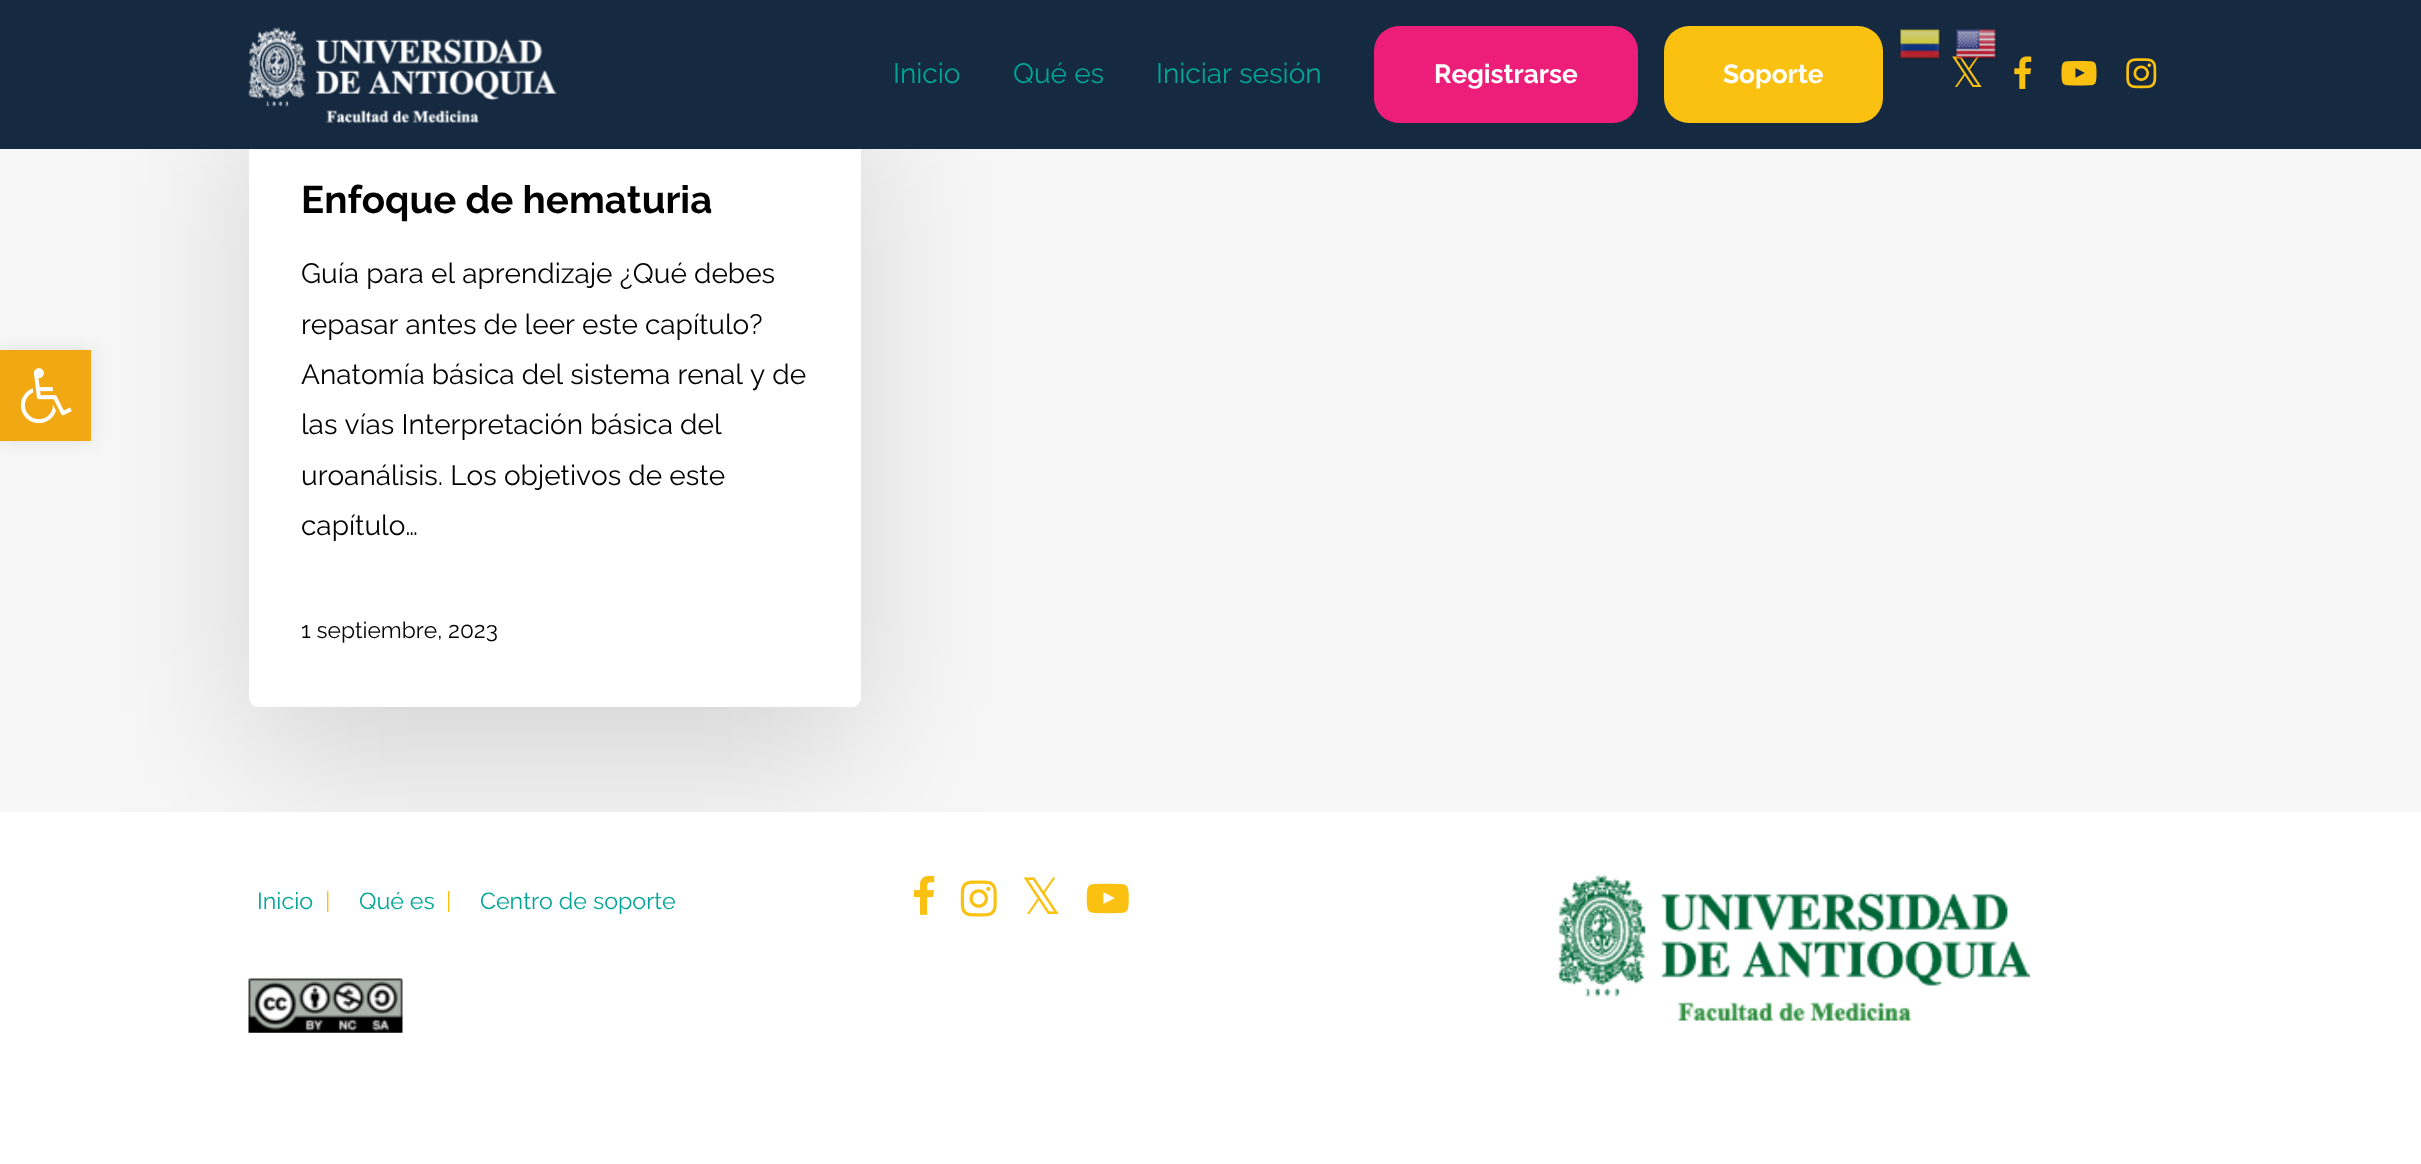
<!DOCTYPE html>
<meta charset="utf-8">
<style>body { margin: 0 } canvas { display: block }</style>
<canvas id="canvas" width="2421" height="1164"></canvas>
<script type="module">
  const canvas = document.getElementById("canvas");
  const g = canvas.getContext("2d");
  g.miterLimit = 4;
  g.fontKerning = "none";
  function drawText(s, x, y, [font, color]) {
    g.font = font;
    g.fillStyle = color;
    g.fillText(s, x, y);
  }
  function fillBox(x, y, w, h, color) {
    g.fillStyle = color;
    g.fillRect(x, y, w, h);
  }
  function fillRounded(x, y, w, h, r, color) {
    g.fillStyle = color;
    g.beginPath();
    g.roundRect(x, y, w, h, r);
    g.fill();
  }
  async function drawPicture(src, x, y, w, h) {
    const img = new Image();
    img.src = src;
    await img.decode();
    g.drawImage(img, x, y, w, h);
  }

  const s1 = ["42px DejaVu Sans", "#FAC111"];
  const s2 = ["28px Raleway", "#00A597"];
  const s3 = ["bold 26.25px Raleway", "#FFFFFF"];
  const s4 = ["bold 38.5px Raleway", "#000000"];
  const s5 = ["28px Raleway", "#000000"];
  const s6 = ["22.75px Raleway", "#000000"];
  const s7 = ["23.25px Raleway", "#00A597"];
  const s8 = ["23.25px Raleway", "#FAC111"];
  const s9 = ["50px DejaVu Sans", "#FAC111"];

  fillBox(0, 0, 2421, 1164, "#F7F7F7");
  g.fillStyle = "rgba(0, 0, 0, 0.14)";
  g.filter = "blur(79px)";
  g.beginPath();
  g.roundRect(249, 110, 612, 650, 9);
  g.fill();
  g.filter = "none";
  fillBox(0, 0, 2421, 149, "#152A41");
  await drawPicture("pic1.png", 1899, 29, 42, 31);
  drawText("𝕏", 1950, 87, s1);
  await drawPicture("pic2.png", 1955, 29, 42, 32);
  await drawPicture("pic3.png", 248, 27, 309, 96);
  drawText("Inicio", 893, 83, s2);
  drawText("Qué es", 1013, 83, s2);
  drawText("Iniciar sesión", 1156, 83, s2);
  fillRounded(1374, 26, 264, 97, 25, "#ED1E79");
  drawText("Registrarse", 1434, 83, s3);
  fillRounded(1664, 26, 219, 97, 25, "#FAC111");
  drawText("Soporte", 1723, 83, s3);
  await drawPicture("pic4.png", 2014, 56, 18, 33);
  await drawPicture("pic5.png", 2026, 94, 2, 1);
  await drawPicture("pic6.png", 2061, 60, 36, 26);
  await drawPicture("pic7.png", 2126, 58, 31, 31);
  g.fillStyle = "rgba(0, 0, 0, 0.1)";
  g.filter = "blur(9px)";
  g.beginPath();
  g.rect(0, 350, 91, 91);
  g.fill();
  g.filter = "none";
  fillBox(0, 350, 91, 91, "#F2A813");
  await drawPicture("pic8.png", 20, 368, 52, 56);
  fillBox(249, 149, 612, 3, "#FFFFFF");
  g.beginPath();
  g.roundRect(249, 152, 612, 555, [0, 0, 9, 9]);
  g.fill();
  drawText("Enfoque de hematuria", 301, 213, s4);
  drawText("Guía para el aprendizaje ¿Qué debes", 301, 283, s5);
  drawText("repasar antes de leer este capítulo?", 301, 334, s5);
  drawText("Anatomía básica del sistema renal y de", 301, 384, s5);
  drawText("las vías Interpretación básica del", 301, 434, s5);
  drawText("uroanálisis. Los objetivos de este", 301, 485, s5);
  drawText("capítulo…", 301, 535, s5);
  drawText("1 septiembre, 2023", 301, 638, s6);
  fillBox(0, 812, 2421, 352, "#FFFFFF");
  drawText("Inicio", 257, 909, s7);
  drawText("|", 325, 909, s8);
  drawText("Qué es", 359, 909, s7);
  drawText("|", 446, 909, s8);
  drawText("Centro de soporte", 480, 909, s7);
  await drawPicture("pic9.png", 248, 978, 155, 55);
  await drawPicture("pic10.png", 913, 875, 22, 40);
  await drawPicture("pic11.png", 960, 880, 37, 37);
  drawText("𝕏", 1021, 914, s9);
  await drawPicture("pic12.png", 1086, 883, 43, 31);
  await drawPicture("pic13.png", 1557, 875, 473, 148);
</script>
